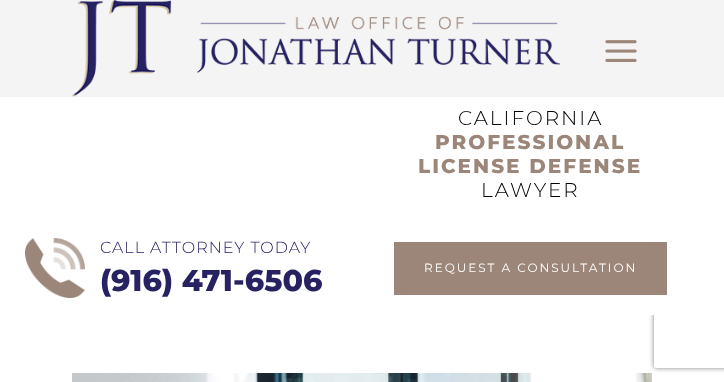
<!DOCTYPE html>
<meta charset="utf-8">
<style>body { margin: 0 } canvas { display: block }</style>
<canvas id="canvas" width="724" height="382"></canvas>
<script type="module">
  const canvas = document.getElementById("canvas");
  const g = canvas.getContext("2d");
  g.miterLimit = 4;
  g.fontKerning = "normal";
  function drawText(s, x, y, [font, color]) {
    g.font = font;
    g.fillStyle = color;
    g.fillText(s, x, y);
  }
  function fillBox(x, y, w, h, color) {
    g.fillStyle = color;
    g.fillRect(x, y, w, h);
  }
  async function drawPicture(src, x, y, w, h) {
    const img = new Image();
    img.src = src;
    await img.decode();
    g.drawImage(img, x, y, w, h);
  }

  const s1 = ["300 20px Montserrat", "#000000"];
  const s2 = ["800 20px Montserrat", "#9C8679"];
  const s3 = ["300 16px Montserrat", "#272262"];
  const s4 = ["800 30px Montserrat", "#272262"];
  const s5 = ["12px Montserrat", "#FFFFFF"];

  fillBox(0, 0, 724, 382, "#FFFFFF");
  fillBox(0, 0, 724, 97, "#F4F4F4");
  await drawPicture("pic1.png", 72, 0, 488, 97);
  await drawPicture("pic2.png", 605, 40, 32, 22);
  await drawPicture("pic4.png", 72, 373, 580, 9);
  g.save();
  g.beginPath();
  g.moveTo(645, 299);
  g.lineTo(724, 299);
  g.lineTo(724, 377);
  g.lineTo(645, 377);
  g.closePath();
  g.moveTo(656, 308);
  g.lineTo(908, 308);
  g.bezierCurveTo(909, 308, 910, 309, 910, 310);
  g.lineTo(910, 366);
  g.bezierCurveTo(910, 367, 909, 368, 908, 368);
  g.lineTo(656, 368);
  g.bezierCurveTo(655, 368, 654, 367, 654, 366);
  g.lineTo(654, 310);
  g.bezierCurveTo(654, 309, 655, 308, 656, 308);
  g.closePath();
  g.clip("evenodd");
  g.fillStyle = "#808080";
  g.filter = "blur(2.5px)";
  g.beginPath();
  g.roundRect(654, 308, 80, 60, 2);
  g.fill();
  g.filter = "none";
  g.restore();
  fillBox(649, 303, 75, 12, "#FFFFFF");
  g.letterSpacing = "2px";
  drawText("CALIFORNIA", 458, 125, s1);
  drawText("PROFESSIONAL", 435, 149, s2);
  drawText("LICENSE DEFENSE", 418, 173, s2);
  drawText("LAWYER", 481, 197, s1);
  await drawPicture("pic3.png", 25, 238, 60, 60);
  g.letterSpacing = "1px";
  drawText("CALL ATTORNEY TODAY", 100, 253, s3);
  g.letterSpacing = "0px";
  drawText("(916) 471-6506", 100, 291, s4);
  fillBox(394, 242, 273, 53, "#9C8679");
  g.letterSpacing = "2px";
  drawText("REQUEST A CONSULTATION", 424, 272, s5);
</script>
